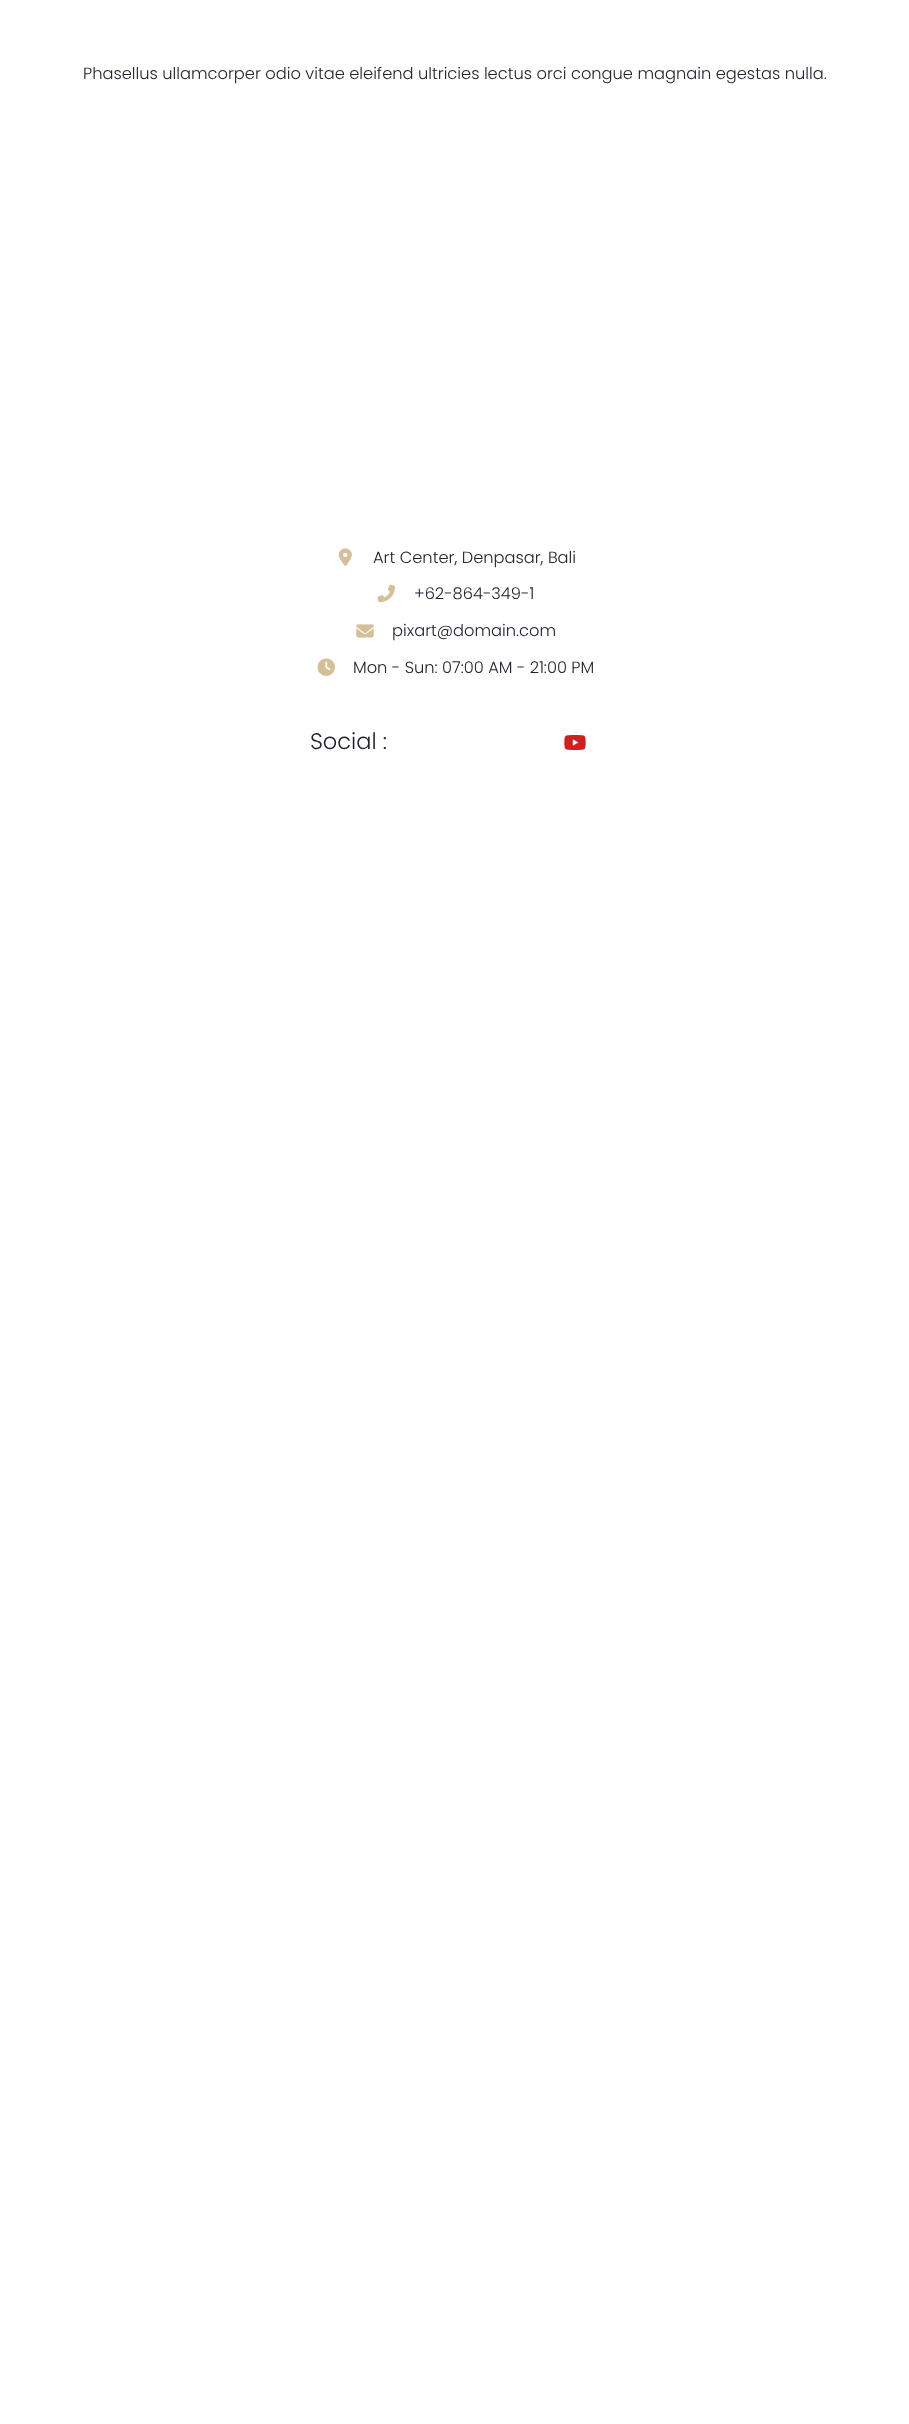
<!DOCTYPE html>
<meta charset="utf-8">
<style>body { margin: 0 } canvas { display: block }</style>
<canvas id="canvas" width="909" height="2424"></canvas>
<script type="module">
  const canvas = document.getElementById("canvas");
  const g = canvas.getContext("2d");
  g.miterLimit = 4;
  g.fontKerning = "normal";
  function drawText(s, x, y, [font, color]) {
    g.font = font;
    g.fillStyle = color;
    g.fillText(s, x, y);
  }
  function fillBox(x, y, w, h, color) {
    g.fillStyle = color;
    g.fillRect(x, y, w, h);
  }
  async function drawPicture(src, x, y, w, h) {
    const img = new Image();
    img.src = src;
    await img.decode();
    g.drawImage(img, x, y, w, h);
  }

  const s1 = ["300 16.25px Poppins", "#21232E"];
  const s2 = ["300 22.5px Poppins", "#21232E"];

  fillBox(0, 0, 909, 2424, "#FFFFFF");
  drawText("Phasellus ullamcorper odio vitae eleifend ultricies lectus orci congue magnain egestas nulla.", 83, 79, s1);
  await drawPicture("pic1.png", 338, 548, 14, 18);
  drawText("Art Center, Denpasar, Bali", 373, 563, s1);
  await drawPicture("pic2.png", 377, 584, 18, 19);
  drawText("+62-864-349-1", 414, 599, s1);
  await drawPicture("pic3.png", 356, 624, 18, 14);
  drawText("pixart@domain.com", 392, 636, s1);
  await drawPicture("pic4.png", 317, 658, 18, 18);
  drawText("Mon - Sun: 07:00 AM - 21:00 PM", 353, 673, s1);
  drawText("Social :", 310, 749, s2);
  await drawPicture("pic5.png", 564, 735, 22, 15);
</script>
